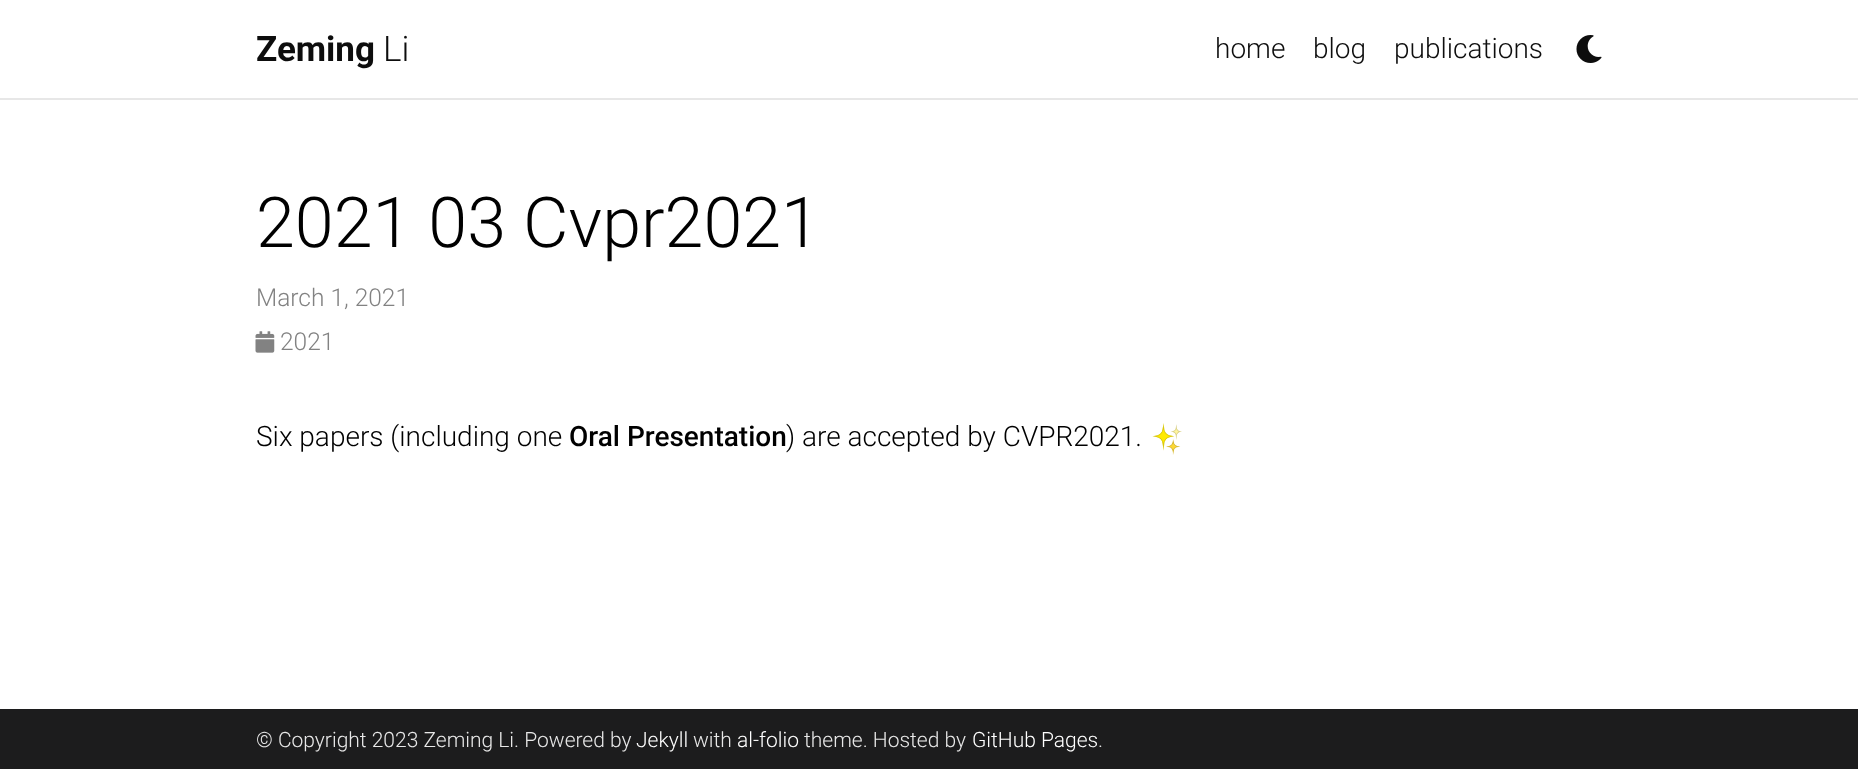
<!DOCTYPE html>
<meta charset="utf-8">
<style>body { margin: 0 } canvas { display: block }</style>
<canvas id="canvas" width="1858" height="769"></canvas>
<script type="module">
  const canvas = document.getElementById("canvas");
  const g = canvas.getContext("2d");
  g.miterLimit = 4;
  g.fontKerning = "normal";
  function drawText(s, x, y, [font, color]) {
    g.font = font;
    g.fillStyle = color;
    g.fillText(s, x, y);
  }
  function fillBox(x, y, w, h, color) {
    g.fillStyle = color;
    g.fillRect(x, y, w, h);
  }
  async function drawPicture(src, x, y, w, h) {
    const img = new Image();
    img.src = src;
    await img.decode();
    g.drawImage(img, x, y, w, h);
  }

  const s1 = ["bold 35px Roboto", "#0D0D0D"];
  const s2 = ["300 35px Roboto", "#0D0D0D"];
  const s3 = ["300 28px Roboto", "#0D0D0D"];
  const s4 = ["300 70px Roboto", "#000000"];
  const s5 = ["300 24.5px Roboto", "#828282"];
  const s6 = ["300 28px Roboto", "#000000"];
  const s7 = ["500 28px Roboto", "#000000"];
  const s8 = ["300 21px Roboto", "#E8E8E8"];
  const s9 = ["300 21px Roboto", "#FFFFFF"];

  fillBox(0, 0, 1858, 769, "#FFFFFF");
  fillBox(0, 98, 1858, 2, "#E7E7E7");
  drawText("Zeming", 256, 61, s1);
  drawText("Li", 383, 61, s2);
  drawText("home", 1215, 58, s3);
  drawText("blog", 1313, 58, s3);
  drawText("publications", 1394, 58, s3);
  await drawPicture("pic1.png", 1576, 35, 26, 28);
  drawText("2021 03 Cvpr2021", 256, 247, s4);
  drawText("March 1, 2021", 256, 306, s5);
  await drawPicture("pic2.png", 255, 331, 20, 22);
  drawText("2021", 280, 350, s5);
  drawText("Six papers (including one", 256, 446, s6);
  drawText("Oral Presentation", 569, 446, s7);
  drawText(") are accepted by CVPR2021.", 786, 446, s6);
  await drawPicture("pic3.png", 1152, 423, 30, 32);
  fillBox(0, 709, 1858, 60, "#1C1C1D");
  drawText("© Copyright 2023 Zeming Li. Powered by", 256, 747, s8);
  drawText("Jekyll", 636, 747, s9);
  drawText("with", 693, 747, s8);
  drawText("al-folio", 737, 747, s9);
  drawText("theme. Hosted by", 804, 747, s8);
  drawText("GitHub Pages", 972, 747, s9);
  drawText(".", 1098, 747, s8);
</script>
